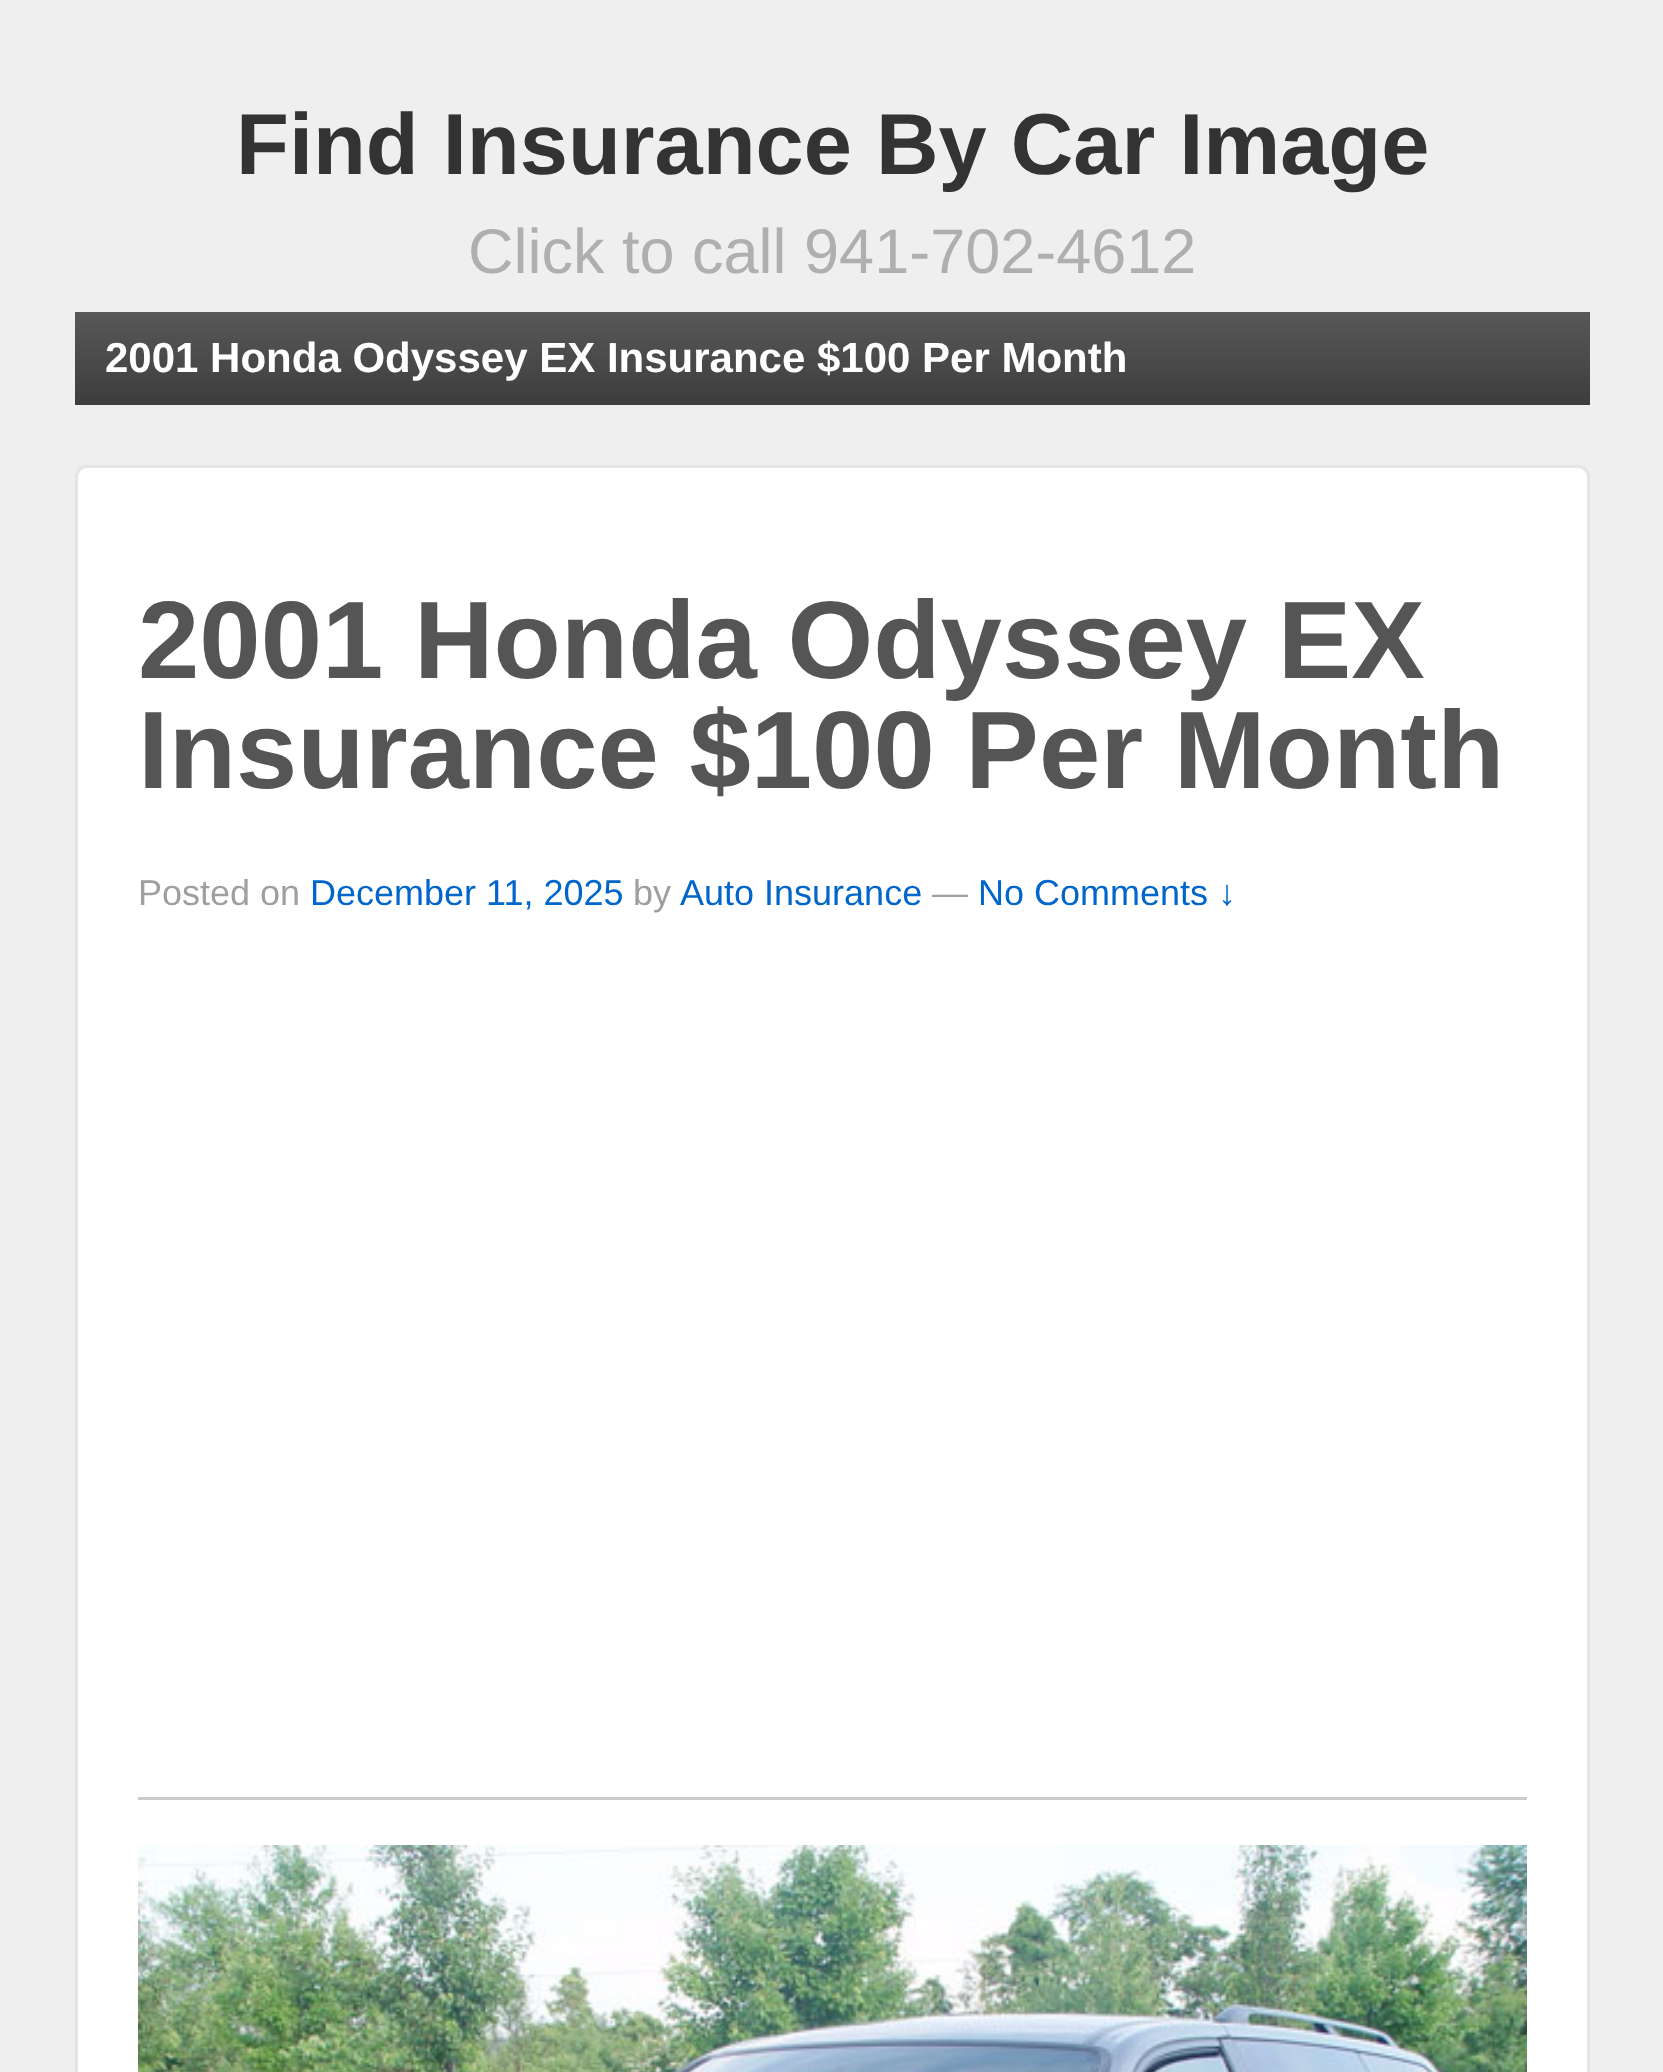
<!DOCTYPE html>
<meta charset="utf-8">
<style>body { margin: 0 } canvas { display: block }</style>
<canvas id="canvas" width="1663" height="2072"></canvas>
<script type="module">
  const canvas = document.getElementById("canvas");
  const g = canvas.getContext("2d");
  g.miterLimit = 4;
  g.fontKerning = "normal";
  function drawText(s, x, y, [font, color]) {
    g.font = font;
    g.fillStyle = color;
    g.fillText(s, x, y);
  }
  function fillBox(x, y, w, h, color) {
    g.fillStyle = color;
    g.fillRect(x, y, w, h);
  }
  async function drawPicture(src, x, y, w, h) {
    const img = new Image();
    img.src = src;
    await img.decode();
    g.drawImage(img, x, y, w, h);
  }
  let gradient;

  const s1 = ["bold 86.6px Liberation Sans", "#333333"];
  const s2 = ["63px Liberation Sans", "#AFAFAF"];
  const s3 = ["bold 42px Liberation Sans", "#FFFFFF"];
  const s4 = ["bold 110.25px Liberation Sans", "#555555"];
  const s5 = ["36px Liberation Sans", "#9F9F9F"];
  const s6 = ["36px Liberation Sans", "#0066CC"];

  fillBox(0, 0, 1663, 2072, "#EFEFEF");
  drawText("Find Insurance By Car Image", 236, 174, s1);
  drawText("Click to call 941-702-4612", 468, 273, s2);
  gradient = g.createLinearGradient(833, 312, 833, 405);
  gradient.addColorStop(0, "#585858");
  gradient.addColorStop(1, "#3D3D3D");
  g.fillStyle = gradient;
  g.fillRect(75, 312, 1515, 93);
  drawText("2001 Honda Odyssey EX Insurance $100 Per Month", 105, 372, s3);
  g.beginPath();
  g.roundRect(76.5, 466.5, 1512, 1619, 10.5);
  g.fill();
  g.strokeStyle = "#E5E5E5";
  g.lineWidth = 3;
  g.stroke();
  drawText("2001 Honda Odyssey EX", 138, 678, s4);
  drawText("Insurance $100 Per Month", 138, 788, s4);
  drawText("Posted on", 138, 905, s5);
  drawText("December 11, 2025", 310, 905, s6);
  drawText("by", 633, 905, s5);
  drawText("Auto Insurance", 680, 905, s6);
  drawText("—", 932, 905, s5);
  drawText("No Comments ↓", 978, 905, s6);
  fillBox(138, 1797, 1389, 3, "#CCCCCC");
  await drawPicture("pic1.png", 138, 1845, 1389, 227);
</script>
